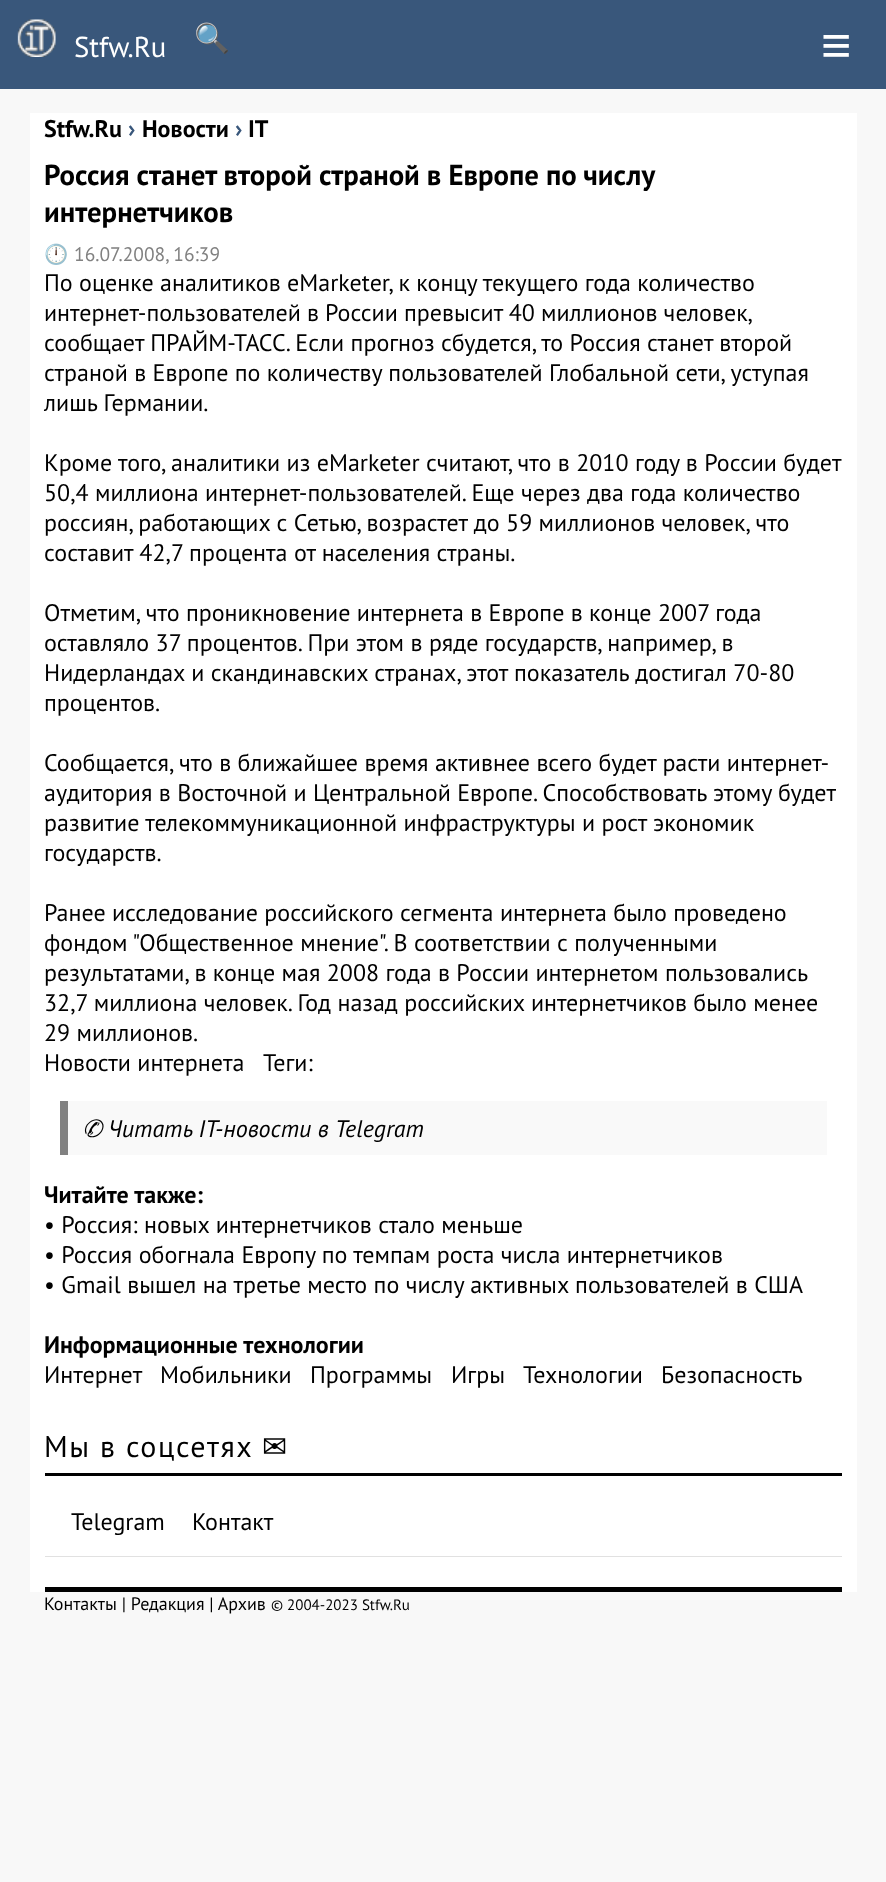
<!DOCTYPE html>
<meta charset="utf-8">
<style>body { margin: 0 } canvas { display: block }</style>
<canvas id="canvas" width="886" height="1882"></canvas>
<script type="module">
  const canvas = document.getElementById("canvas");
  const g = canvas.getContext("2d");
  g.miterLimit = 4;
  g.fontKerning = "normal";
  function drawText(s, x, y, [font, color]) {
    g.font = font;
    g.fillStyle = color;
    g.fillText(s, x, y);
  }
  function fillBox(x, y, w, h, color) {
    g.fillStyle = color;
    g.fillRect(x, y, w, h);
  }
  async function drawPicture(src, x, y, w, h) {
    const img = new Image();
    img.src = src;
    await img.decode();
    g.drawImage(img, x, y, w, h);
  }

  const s1 = ["28.8px PT Sans", "#FFFFFF"];
  const s2 = ["28.8px Noto Color Emoji", "#FFFFFF"];
  const s3 = ["52px Liberation Sans", "#FFFFFF"];
  const s4 = ["bold 24px PT Sans", "#000000"];
  const s5 = ["bold 24px PT Sans", "#39577B"];
  const s6 = ["bold 28.8px PT Sans", "#000000"];
  const s7 = ["19.5px Noto Color Emoji", "#818181"];
  const s8 = ["19.5px PT Sans", "#818181"];
  const s9 = ["24px PT Sans", "#000000"];
  const s10 = ["italic 24px DejaVu Sans", "#000000"];
  const s11 = ["italic 24px PT Sans", "#000000"];
  const s12 = ["30px PT Sans", "#000000"];
  const s13 = ["30px DejaVu Sans", "#000000"];
  const s14 = ["18px PT Sans", "#000000"];
  const s15 = ["15px PT Sans", "#000000"];

  fillBox(0, 0, 886, 1882, "#F8F8F8");
  fillBox(0, 0, 886, 89, "#39577B");
  await drawPicture("pic1.png", 17, 19, 39, 38);
  drawText("Stfw.Ru", 74, 57, s1);
  drawText("🔍", 194, 48, s2);
  drawText("≡", 821, 63, s3);
  fillBox(30, 113, 827, 1479, "#FFFFFF");
  drawText("Stfw.Ru", 44, 137, s4);
  drawText("›", 128, 137, s5);
  drawText("Новости", 142, 137, s4);
  drawText("›", 235, 137, s5);
  drawText("IT", 248, 137, s4);
  g.wordSpacing = "-0.25px";
  drawText("Россия станет второй страной в Европе по числу", 44, 185, s6);
  g.wordSpacing = "0px";
  drawText("интернетчиков", 44, 222, s6);
  drawText("🕛", 44, 261, s7);
  drawText("16.07.2008, 16:39", 74, 261, s8);
  drawText("По оценке аналитиков eMarketer, к концу текущего года количество", 44, 291, s9);
  g.wordSpacing = "-0.25px";
  drawText("интернет-пользователей в России превысит 40 миллионов человек,", 44, 321, s9);
  g.wordSpacing = "0px";
  drawText("сообщает ПРАЙМ-ТАСС. Если прогноз сбудется, то Россия станет второй", 44, 351, s9);
  drawText("страной в Европе по количеству пользователей Глобальной сети, уступая", 44, 381, s9);
  drawText("лишь Германии.", 44, 411, s9);
  drawText("Кроме того, аналитики из eMarketer считают, что в 2010 году в России будет", 44, 471, s9);
  drawText("50,4 миллиона интернет-пользователей. Еще через два года количество", 44, 501, s9);
  drawText("россиян, работающих с Сетью, возрастет до 59 миллионов человек, что", 44, 531, s9);
  drawText("составит 42,7 процента от населения страны.", 44, 561, s9);
  drawText("Отметим, что проникновение интернета в Европе в конце 2007 года", 44, 621, s9);
  drawText("оставляло 37 процентов. При этом в ряде государств, например, в", 44, 651, s9);
  drawText("Нидерландах и скандинавских странах, этот показатель достигал 70-80", 44, 681, s9);
  drawText("процентов.", 44, 711, s9);
  drawText("Сообщается, что в ближайшее время активнее всего будет расти интернет-", 44, 771, s9);
  drawText("аудитория в Восточной и Центральной Европе. Способствовать этому будет", 44, 801, s9);
  drawText("развитие телекоммуникационной инфраструктуры и рост экономик", 44, 831, s9);
  drawText("государств.", 44, 861, s9);
  drawText("Ранее исследование российского сегмента интернета было проведено", 44, 921, s9);
  drawText("фондом \"Общественное мнение\". В соответствии с полученными", 44, 951, s9);
  drawText("результатами, в конце мая 2008 года в России интернетом пользовались", 44, 981, s9);
  drawText("32,7 миллиона человек. Год назад российских интернетчиков было менее", 44, 1011, s9);
  drawText("29 миллионов.", 44, 1041, s9);
  drawText("Новости интернета", 44, 1071, s9);
  drawText("Теги:", 263, 1071, s9);
  fillBox(68, 1101, 759, 54, "#F9F9F9");
  fillBox(60, 1101, 8, 54, "#818181");
  drawText("✆", 82, 1137, s10);
  drawText("Читать IT-новости в Telegram", 108, 1137, s11);
  drawText("Читайте также:", 44, 1203, s4);
  drawText("• Россия: новых интернетчиков стало меньше", 44, 1233, s9);
  drawText("• Россия обогнала Европу по темпам роста числа интернетчиков", 44, 1263, s9);
  drawText("• Gmail вышел на третье место по числу активных пользователей в США", 44, 1293, s9);
  drawText("Информационные технологии", 44, 1353, s4);
  drawText("Интернет", 44, 1383, s9);
  drawText("Мобильники", 160, 1383, s9);
  drawText("Программы", 310, 1383, s9);
  drawText("Игры", 451, 1383, s9);
  drawText("Технологии", 523, 1383, s9);
  drawText("Безопасность", 661, 1383, s9);
  fillBox(45, 1473, 797, 3, "#000000");
  g.letterSpacing = "1.5px";
  drawText("Мы в соцсетях", 44, 1457, s12);
  drawText("✉", 262, 1457, s13);
  fillBox(45, 1556, 797, 1, "#E1E1E1");
  g.letterSpacing = "0px";
  drawText("Telegram", 71, 1530, s9);
  drawText("Контакт", 192, 1530, s9);
  fillBox(45, 1587, 797, 5, "#000000");
  drawText("Контакты | Редакция | Архив", 44, 1610, s14);
  drawText("© 2004-2023 Stfw.Ru", 271, 1610, s15);
</script>
